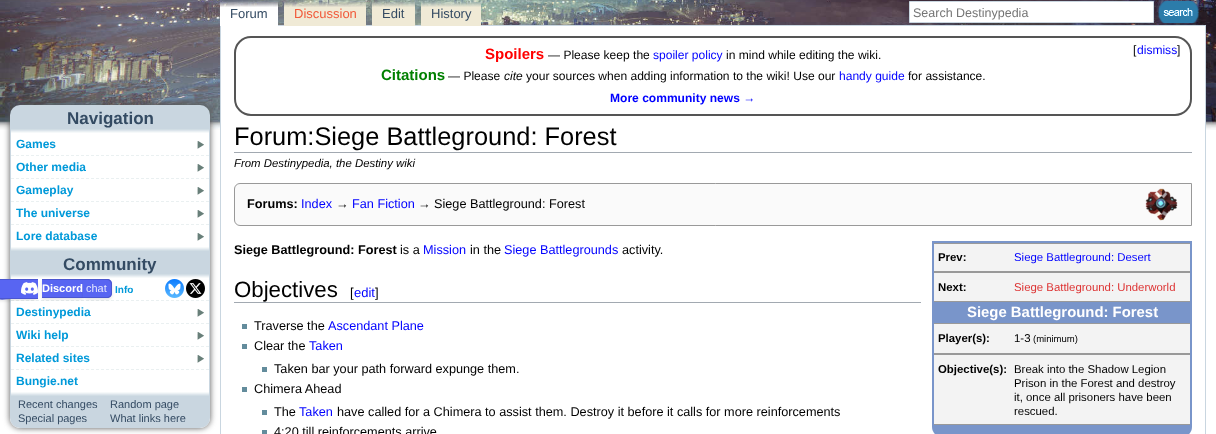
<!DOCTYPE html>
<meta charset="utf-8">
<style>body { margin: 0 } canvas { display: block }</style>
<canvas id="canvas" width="1216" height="434"></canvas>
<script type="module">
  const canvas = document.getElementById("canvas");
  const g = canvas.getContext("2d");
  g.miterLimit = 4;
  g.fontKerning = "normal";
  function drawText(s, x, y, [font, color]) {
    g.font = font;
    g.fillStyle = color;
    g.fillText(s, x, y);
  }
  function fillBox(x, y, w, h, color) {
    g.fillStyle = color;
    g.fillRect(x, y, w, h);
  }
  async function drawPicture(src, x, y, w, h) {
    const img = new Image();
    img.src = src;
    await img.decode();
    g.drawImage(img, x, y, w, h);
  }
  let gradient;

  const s1 = ["12.5px Liberation Sans", "#757575"];
  const s2 = ["bold 17px Liberation Sans", "#344B63"];
  const s3 = ["bold 12px Liberation Sans", "#0099D9"];
  const s4 = ["bold 11px Liberation Sans", "#FFFFFF"];
  const s5 = ["11px Liberation Sans", "#E6E8FD"];
  const s6 = ["bold 10px Liberation Sans", "#0099D9"];
  const s7 = ["11px Liberation Sans", "#344B63"];
  const s8 = ["13px Liberation Sans", "#344B63"];
  const s9 = ["13px Liberation Sans", "#F15A3A"];
  const s10 = ["bold 15px Liberation Sans", "#FF0000"];
  const s11 = ["12.05px Liberation Sans", "#000000"];
  const s12 = ["12.05px Liberation Sans", "#0000FF"];
  const s13 = ["bold 15px Liberation Sans", "#008000"];
  const s14 = ["italic 12.05px Liberation Sans", "#000000"];
  const s15 = ["bold 12.05px Liberation Sans", "#0000FF"];
  const s16 = ["25.4px Liberation Sans", "#000000"];
  const s17 = ["italic 11.4px Liberation Sans", "#000000"];
  const s18 = ["bold 12.7px Liberation Sans", "#000000"];
  const s19 = ["12.7px Liberation Sans", "#0000FF"];
  const s20 = ["12.7px Liberation Sans", "#000000"];
  const s21 = ["22.25px Liberation Sans", "#000000"];
  const s22 = ["13px Liberation Sans", "#000000"];
  const s23 = ["13px Liberation Sans", "#0000FF"];
  const s24 = ["bold 11.4px Liberation Sans", "#000000"];
  const s25 = ["11.4px Liberation Sans", "#0000FF"];
  const s26 = ["11.4px Liberation Sans", "#DD3333"];
  const s27 = ["bold 14.9px Liberation Sans", "#FFFFFF"];
  const s28 = ["11.4px Liberation Sans", "#000000"];
  const s29 = ["9.5px Liberation Sans", "#000000"];

  fillBox(0, 0, 1216, 434, "#FFFFFF");
  await drawPicture("pic1.png", 0, 0, 1216, 130);
  g.beginPath();
  g.rect(909.5, 1.5, 244, 21);
  g.fill();
  g.strokeStyle = "#C9D6E0";
  g.stroke();
  drawText("Search Destinypedia", 913, 17, s1);
  await drawPicture("pic2.png", 1155, 1, 44, 22);
  g.save();
  g.beginPath();
  g.moveTo(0, 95);
  g.lineTo(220, 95);
  g.lineTo(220, 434);
  g.lineTo(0, 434);
  g.closePath();
  g.moveTo(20, 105);
  g.lineTo(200, 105);
  g.bezierCurveTo(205.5, 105, 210, 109.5, 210, 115);
  g.lineTo(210, 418);
  g.bezierCurveTo(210, 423.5, 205.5, 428, 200, 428);
  g.lineTo(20, 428);
  g.bezierCurveTo(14.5, 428, 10, 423.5, 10, 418);
  g.lineTo(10, 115);
  g.bezierCurveTo(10, 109.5, 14.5, 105, 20, 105);
  g.closePath();
  g.clip("evenodd");
  g.fillStyle = "#555555";
  g.filter = "blur(3px)";
  g.beginPath();
  g.roundRect(10, 105, 200, 323, 10);
  g.fill();
  g.filter = "none";
  g.restore();
  g.fillStyle = "#C9D6E0";
  g.beginPath();
  g.roundRect(10, 105, 200, 28, [10, 10, 0, 0]);
  g.fill();
  await drawPicture("pic3.png", 11, 129, 198, 4);
  drawText("Navigation", 67, 124, s2);
  fillBox(209, 133, 1, 114, "#C9D6E0");
  fillBox(10, 133, 1, 114, "#C9D6E0");
  g.beginPath();
  g.moveTo(11, 155.5);
  g.lineTo(209, 155.5);
  g.strokeStyle = "#EAF0F1";
  g.setLineDash([3, 2]);
  g.stroke();
  drawText("Games", 16, 148, s3);
  await drawPicture("pic4.png", 197, 141, 7, 8);
  g.beginPath();
  g.moveTo(11, 178.5);
  g.lineTo(209, 178.5);
  g.stroke();
  drawText("Other media", 16, 171, s3);
  await drawPicture("pic4.png", 197, 164, 7, 8);
  g.beginPath();
  g.moveTo(11, 201.5);
  g.lineTo(209, 201.5);
  g.stroke();
  drawText("Gameplay", 16, 194, s3);
  await drawPicture("pic4.png", 197, 187, 7, 8);
  g.beginPath();
  g.moveTo(11, 224.5);
  g.lineTo(209, 224.5);
  g.stroke();
  drawText("The universe", 16, 217, s3);
  await drawPicture("pic4.png", 197, 210, 7, 8);
  drawText("Lore database", 16, 240, s3);
  await drawPicture("pic4.png", 197, 233, 7, 8);
  fillBox(10, 247, 200, 31, "#C9D6E0");
  await drawPicture("pic5.png", 11, 247, 198, 4);
  await drawPicture("pic3.png", 11, 274, 198, 4);
  drawText("Community", 63, 270, s2);
  fillBox(209, 278, 1, 114, "#C9D6E0");
  fillBox(10, 278, 1, 114, "#C9D6E0");
  g.beginPath();
  g.moveTo(11, 300.5);
  g.lineTo(209, 300.5);
  g.stroke();
  g.fillStyle = "rgba(0, 0, 0, 0.1)";
  g.filter = "blur(1.5px)";
  g.beginPath();
  g.roundRect(-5, 281, 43, 20, 5);
  g.fill();
  g.filter = "none";
  fillBox(0, 280, 38, 18, "#5865F2");
  g.fillStyle = "#4B56D0";
  g.beginPath();
  g.moveTo(0, 279);
  g.lineTo(38, 279);
  g.lineTo(38, 299);
  g.lineTo(13, 299);
  g.bezierCurveTo(2, 299, -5, 303, -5, 291);
  g.bezierCurveTo(-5, 287, -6, 279, 0, 279);
  g.closePath();
  g.moveTo(0, 280);
  g.lineTo(38, 280);
  g.lineTo(38, 298);
  g.lineTo(0, 298);
  g.bezierCurveTo(-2, 298, -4, 296, -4, 294);
  g.lineTo(-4, 284);
  g.bezierCurveTo(-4, 282, -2, 280, 0, 280);
  g.closePath();
  g.fill("evenodd");
  g.fillStyle = "rgba(0, 0, 0, 0.1)";
  g.filter = "blur(1.5px)";
  g.beginPath();
  g.rect(42, 281, 41, 19);
  g.fill();
  g.filter = "none";
  fillBox(42, 280, 41, 17, "#5865F2");
  fillBox(42, 279, 41, 1, "#4B56D0");
  fillBox(42, 297, 41, 1, "#4B56D0");
  g.fillStyle = "rgba(0, 0, 0, 0.1)";
  g.filter = "blur(1.5px)";
  g.beginPath();
  g.roundRect(83, 281, 29, 19, 5);
  g.fill();
  g.filter = "none";
  g.fillStyle = "#5865F2";
  g.beginPath();
  g.roundRect(83, 279, 29, 19, [0, 5, 5, 0]);
  g.fill();
  g.fillStyle = "#4B56D0";
  g.beginPath();
  g.moveTo(83, 279);
  g.lineTo(107, 279);
  g.bezierCurveTo(110, 279, 112, 281, 112, 284);
  g.lineTo(112, 293);
  g.bezierCurveTo(112, 296, 110, 298, 107, 298);
  g.lineTo(83, 298);
  g.closePath();
  g.moveTo(83, 280);
  g.lineTo(107, 280);
  g.bezierCurveTo(109, 280, 111, 282, 111, 284);
  g.lineTo(111, 293);
  g.bezierCurveTo(111, 295, 109, 297, 107, 297);
  g.lineTo(83, 297);
  g.closePath();
  g.fill("evenodd");
  await drawPicture("pic6.png", 21, 282, 17, 13);
  drawText("Discord", 42, 292, s4);
  drawText("chat", 86, 292, s5);
  drawText("Info", 115, 293, s6);
  await drawPicture("pic7.png", 165, 279, 19, 19);
  await drawPicture("pic8.png", 186, 279, 19, 19);
  fillBox(11, 301, 98, 2, "#FFFFFF");
  g.beginPath();
  g.moveTo(11, 323.5);
  g.lineTo(209, 323.5);
  g.stroke();
  drawText("Destinypedia", 16, 316, s3);
  await drawPicture("pic4.png", 197, 309, 7, 8);
  g.beginPath();
  g.moveTo(11, 346.5);
  g.lineTo(209, 346.5);
  g.stroke();
  drawText("Wiki help", 16, 339, s3);
  await drawPicture("pic4.png", 197, 332, 7, 8);
  g.beginPath();
  g.moveTo(11, 369.5);
  g.lineTo(209, 369.5);
  g.stroke();
  drawText("Related sites", 16, 362, s3);
  await drawPicture("pic4.png", 197, 355, 7, 8);
  drawText("Bungie.net", 16, 385, s3);
  g.fillStyle = "#C9D6E0";
  g.beginPath();
  g.roundRect(10, 392, 200, 36, [0, 0, 10, 10]);
  g.fill();
  await drawPicture("pic5.png", 11, 392, 198, 4);
  drawText("Recent changes", 18, 408, s7);
  drawText("Random page", 110, 408, s7);
  drawText("Special pages", 18, 422, s7);
  drawText("What links here", 110, 422, s7);
  fillBox(221, 26, 984, 104, "#FFFFFF");
  g.strokeStyle = "#C9D6E0";
  g.setLineDash([]);
  g.strokeRect(220.5, 25.5, 985, 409);
  gradient = g.createLinearGradient(249, 26, 249, 1);
  gradient.addColorStop(0.75, "#FFFFFF");
  gradient.addColorStop(1, "rgba(255, 255, 255, 0)");
  g.fillStyle = gradient;
  g.fillRect(220, 1, 58, 25);
  drawText("Forum", 230, 18, s8);
  gradient = g.createLinearGradient(325, 26, 325, 1);
  gradient.addColorStop(0.75, "#F0EAD6");
  gradient.addColorStop(1, "rgba(240, 234, 214, 0)");
  g.fillStyle = gradient;
  g.fillRect(284, 1, 82, 25);
  drawText("Discussion", 294, 18, s9);
  gradient = g.createLinearGradient(394, 26, 394, 1);
  gradient.addColorStop(0.75, "#F0EAD6");
  gradient.addColorStop(1, "rgba(240, 234, 214, 0)");
  g.fillStyle = gradient;
  g.fillRect(372, 1, 43, 25);
  drawText("Edit", 382, 18, s8);
  gradient = g.createLinearGradient(451, 26, 451, 1);
  gradient.addColorStop(0.75, "#F0EAD6");
  gradient.addColorStop(1, "rgba(240, 234, 214, 0)");
  g.fillStyle = gradient;
  g.fillRect(421, 1, 60, 25);
  drawText("History", 431, 18, s8);
  g.beginPath();
  g.roundRect(235, 37, 956, 78, 16);
  g.strokeStyle = "#555555";
  g.lineWidth = 2;
  g.stroke();
  drawText("Spoilers", 485, 59, s10);
  drawText("— Please keep the", 548, 59, s11);
  drawText("spoiler policy", 653, 59, s12);
  drawText("in mind while editing the wiki.", 726, 59, s11);
  drawText("Citations", 381, 80, s13);
  drawText("— Please", 448, 80, s11);
  drawText("cite", 504, 80, s14);
  drawText("your sources when adding information to the wiki! Use our", 526, 80, s11);
  drawText("handy guide", 839, 80, s12);
  drawText("for assistance.", 908, 80, s11);
  drawText("More community news →", 610, 102, s15);
  drawText("[", 1133, 54, s11);
  drawText("dismiss", 1137, 54, s12);
  drawText("]", 1177, 54, s11);
  fillBox(234, 152, 958, 1, "#A2A9B1");
  drawText("Forum:Siege Battleground: Forest", 234, 145, s16);
  drawText("From Destinypedia, the Destiny wiki", 234, 167, s17);
  g.fillStyle = "#FAFAFA";
  g.beginPath();
  g.roundRect(234.5, 183.5, 957, 42, [5.5, 0, 0, 5.5]);
  g.fill();
  g.strokeStyle = "#999999";
  g.lineWidth = 1;
  g.stroke();
  drawText("Forums:", 247, 208, s18);
  drawText("Index", 301, 208, s19);
  drawText("→", 336, 208, s18);
  drawText("Fan Fiction", 352, 208, s19);
  drawText("→", 418, 208, s18);
  drawText("Siege Battleground: Forest", 434, 208, s20);
  await drawPicture("pic9.png", 1145, 188, 33, 33);
  drawText("Siege Battleground: Forest", 234, 254, s18);
  drawText("is a", 400, 254, s20);
  drawText("Mission", 423, 254, s19);
  drawText("in the", 470, 254, s20);
  drawText("Siege Battlegrounds", 504, 254, s19);
  drawText("activity.", 622, 254, s20);
  fillBox(234, 302, 687, 1, "#A2A9B1");
  drawText("Objectives", 234, 297, s21);
  drawText("[", 350, 297, s22);
  drawText("edit", 354, 297, s23);
  drawText("]", 375, 297, s22);
  g.fillStyle = "#7995CA";
  g.beginPath();
  g.moveTo(932, 241);
  g.lineTo(1192, 241);
  g.lineTo(1192, 427);
  g.bezierCurveTo(1192, 432.5, 1187.5, 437, 1182, 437);
  g.lineTo(942, 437);
  g.bezierCurveTo(936.5, 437, 932, 432.5, 932, 427);
  g.closePath();
  g.fill();
  fillBox(934, 244, 256, 27, "#F3F3F3");
  fillBox(934, 243, 256, 1, "#999999");
  fillBox(934, 271, 256, 1, "#999999");
  drawText("Prev:", 938, 261, s24);
  drawText("Siege Battleground: Desert", 1014, 261, s25);
  fillBox(934, 273, 256, 28, "#F3F3F3");
  fillBox(934, 272, 256, 1, "#999999");
  fillBox(934, 301, 256, 1, "#999999");
  drawText("Next:", 938, 291, s24);
  drawText("Siege Battleground: Underworld", 1014, 291, s26);
  drawText("Siege Battleground: Forest", 967, 317, s27);
  fillBox(934, 324, 256, 29, "#F3F3F3");
  fillBox(934, 323, 256, 1, "#999999");
  fillBox(934, 353, 256, 1, "#999999");
  drawText("Player(s):", 938, 342, s24);
  drawText("1-3", 1014, 342, s28);
  drawText("(minimum)", 1033, 342, s29);
  fillBox(934, 355, 256, 69, "#F3F3F3");
  fillBox(934, 354, 256, 1, "#999999");
  fillBox(934, 424, 256, 1, "#999999");
  drawText("Objective(s):", 938, 373, s24);
  drawText("Break into the Shadow Legion", 1014, 373, s28);
  drawText("Prison in the Forest and destroy", 1014, 387, s28);
  drawText("it, once all prisoners have been", 1014, 401, s28);
  drawText("rescued.", 1014, 415, s28);
  fillBox(242, 324, 5, 5, "#638C9C");
  drawText("Traverse the", 254, 330, s20);
  drawText("Ascendant Plane", 328, 330, s19);
  fillBox(242, 344, 5, 5, "#638C9C");
  drawText("Clear the", 254, 350, s20);
  drawText("Taken", 309, 350, s19);
  fillBox(262, 367, 5, 5, "#638C9C");
  drawText("Taken bar your path forward expunge them.", 274, 373, s20);
  fillBox(242, 387, 5, 5, "#638C9C");
  drawText("Chimera Ahead", 254, 393, s20);
  fillBox(262, 410, 5, 5, "#638C9C");
  drawText("The", 274, 416, s20);
  drawText("Taken", 299, 416, s19);
  drawText("have called for a Chimera to assist them. Destroy it before it calls for more reinforcements", 337, 416, s20);
  fillBox(262, 430, 5, 4, "#638C9C");
  drawText("4:20 till reinforcements arrive", 274, 436, s20);
</script>
